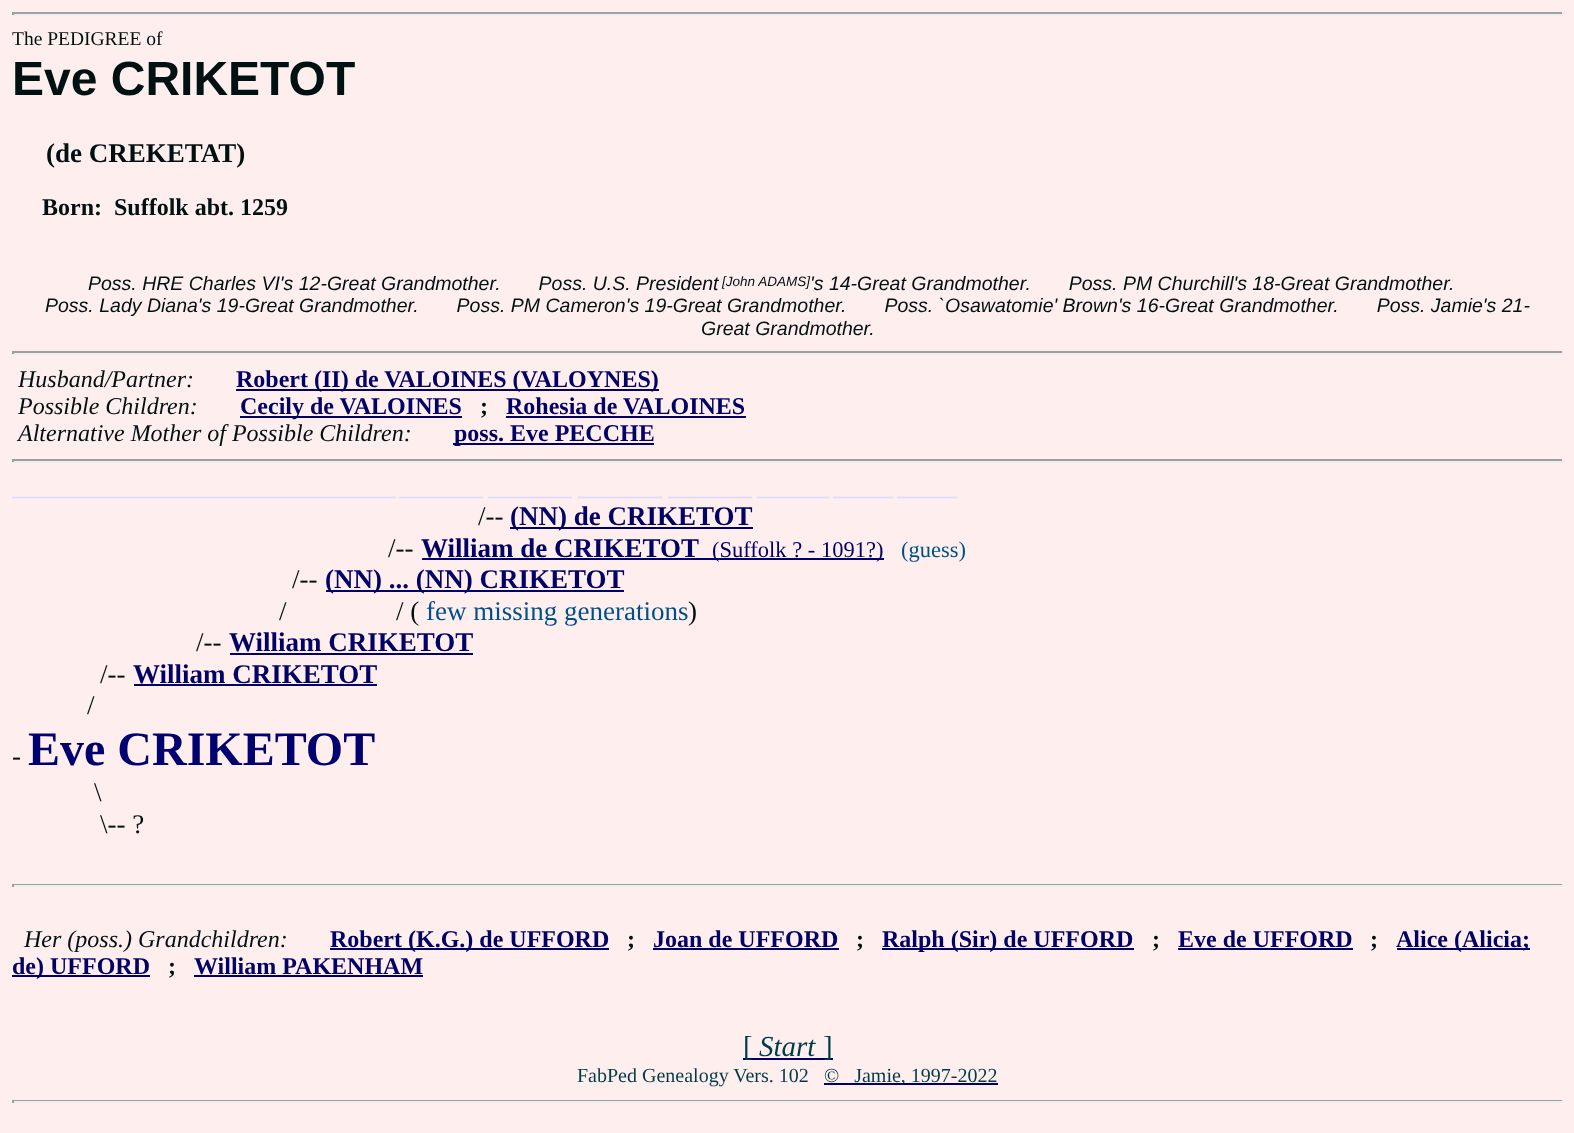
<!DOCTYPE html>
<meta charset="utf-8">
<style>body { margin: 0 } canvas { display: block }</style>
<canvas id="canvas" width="1574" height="1133"></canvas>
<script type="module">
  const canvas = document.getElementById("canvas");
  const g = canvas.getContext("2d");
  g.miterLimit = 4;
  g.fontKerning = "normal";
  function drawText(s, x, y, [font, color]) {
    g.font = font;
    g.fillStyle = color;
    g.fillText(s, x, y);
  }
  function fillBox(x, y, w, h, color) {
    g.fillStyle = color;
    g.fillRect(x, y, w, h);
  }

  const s1 = ["19.5px Liberation Serif", "#001111"];
  const s2 = ["bold 48px Liberation Sans", "#001111"];
  const s3 = ["bold 27px Liberation Serif", "#001111"];
  const s4 = ["bold 24px Liberation Serif", "#001111"];
  const s5 = ["italic 19.5px Liberation Sans", "#001111"];
  const s6 = ["italic 13.5px Liberation Sans", "#001111"];
  const s7 = ["italic 24px Liberation Serif", "#001111"];
  const s8 = ["bold 24px Liberation Serif", "#000066"];
  const s9 = ["bold 24px Liberation Serif", "#DDDDFF"];
  const s10 = ["27px Liberation Serif", "#001111"];
  const s11 = ["bold 27px Liberation Serif", "#000066"];
  const s12 = ["22.5px Liberation Serif", "#000066"];
  const s13 = ["22.5px Liberation Serif", "#005088"];
  const s14 = ["27px Liberation Serif", "#005088"];
  const s15 = ["bold 48px Liberation Serif", "#000070"];
  const s16 = ["29px Liberation Serif", "#003C48"];
  const s17 = ["italic 29px Liberation Serif", "#003C48"];
  const s18 = ["20px Liberation Serif", "#003C48"];

  fillBox(0, 0, 1574, 1133, "#FFEEEE");
  fillBox(12, 12, 1551, 2, "#9F9F9F");
  fillBox(1562, 12, 2, 3, "#EEEEEE");
  fillBox(12, 14, 1551, 2, "#EEEEEE");
  fillBox(12, 12, 2, 3, "#9F9F9F");
  drawText("The PEDIGREE of", 12, 45, s1);
  drawText("Eve CRIKETOT", 12, 95, s2);
  drawText("(de CREKETAT)", 46, 162, s3);
  drawText("Born:", 42, 215, s4);
  drawText("Suffolk abt. 1259", 114, 215, s4);
  drawText("Poss. HRE Charles VI's 12-Great Grandmother.       Poss. U.S. President", 88, 290, s5);
  drawText("[John ADAMS]", 722, 286, s6);
  drawText("'s 14-Great Grandmother.       Poss. PM Churchill's 18-Great Grandmother.", 810, 290, s5);
  drawText("Poss. Lady Diana's 19-Great Grandmother.       Poss. PM Cameron's 19-Great Grandmother.       Poss. `Osawatomie' Brown's 16-Great Grandmother.       Poss. Jamie's 21-", 45, 312, s5);
  drawText("Great Grandmother.", 701, 335, s5);
  fillBox(12, 351, 1551, 2, "#9F9F9F");
  fillBox(1562, 351, 2, 3, "#EEEEEE");
  fillBox(12, 353, 1551, 2, "#EEEEEE");
  fillBox(12, 351, 2, 3, "#9F9F9F");
  drawText("Husband/Partner:", 18, 387, s7);
  fillBox(236, 389, 423, 2, "#000066");
  drawText("Robert (II) de VALOINES (VALOYNES)", 236, 387, s8);
  drawText("Possible Children:", 18, 414, s7);
  fillBox(240, 416, 222, 2, "#000066");
  drawText("Cecily de VALOINES", 240, 414, s8);
  drawText(";", 480, 414, s4);
  drawText("Rohesia de VALOINES", 506, 414, s8);
  fillBox(506, 416, 240, 2, "#000066");
  drawText("Alternative Mother of Possible Children:", 18, 441, s7);
  fillBox(453, 443, 201, 2, "#000066");
  drawText("poss. Eve PECCHE", 454, 441, s8);
  fillBox(12, 459, 1551, 2, "#9F9F9F");
  fillBox(1562, 459, 2, 3, "#EEEEEE");
  fillBox(12, 461, 1551, 2, "#EEEEEE");
  fillBox(12, 459, 2, 3, "#9F9F9F");
  drawText("________________________________", 12, 495, s9);
  drawText("_______", 399, 495, s9);
  drawText("_______", 488, 495, s9);
  drawText("_______", 578, 495, s9);
  drawText("_______", 668, 495, s9);
  drawText("______", 757, 495, s9);
  drawText("_____", 833, 495, s9);
  drawText("_____", 897, 495, s9);
  drawText("/--", 478, 525, s10);
  fillBox(510, 527, 243, 2, "#000066");
  drawText("(NN) de CRIKETOT", 510, 525, s11);
  drawText("/--", 388, 557, s10);
  drawText("William de CRIKETOT", 421, 557, s11);
  fillBox(422, 558, 462, 2, "#000066");
  drawText("(Suffolk ? - 1091?)", 712, 557, s12);
  drawText("(guess)", 901, 557, s13);
  drawText("/--", 292, 588, s10);
  fillBox(326, 590, 298, 2, "#000066");
  drawText("(NN) ... (NN) CRIKETOT", 325, 588, s11);
  drawText("/", 279, 620, s10);
  drawText("/ (", 396, 620, s10);
  drawText("few missing generations", 426, 620, s14);
  drawText(")", 688, 620, s10);
  drawText("/--", 196, 651, s10);
  drawText("William CRIKETOT", 229, 651, s11);
  fillBox(230, 653, 243, 2, "#000066");
  drawText("/--", 100, 683, s10);
  drawText("William CRIKETOT", 133, 683, s11);
  fillBox(134, 684, 243, 2, "#000066");
  drawText("/", 87, 714, s10);
  drawText("-", 12, 765, s10);
  drawText("Eve CRIKETOT", 28, 765, s15);
  drawText("\\", 94, 801, s10);
  drawText("\\-- ?", 100, 833, s10);
  fillBox(12, 884, 1551, 1, "#9F9F9F");
  fillBox(1562, 884, 2, 3, "#EEEEEE");
  fillBox(12, 885, 1551, 2, "#EEEEEE");
  fillBox(12, 884, 2, 3, "#9F9F9F");
  drawText("Her (poss.) Grandchildren:", 24, 947, s7);
  fillBox(330, 948, 279, 2, "#000066");
  drawText("Robert (K.G.) de UFFORD", 330, 947, s8);
  drawText(";", 627, 947, s4);
  drawText("Joan de UFFORD", 653, 947, s8);
  fillBox(653, 948, 186, 2, "#000066");
  drawText(";", 856, 947, s4);
  fillBox(882, 948, 252, 2, "#000066");
  drawText("Ralph (Sir) de UFFORD", 882, 947, s8);
  drawText(";", 1152, 947, s4);
  drawText("Eve de UFFORD", 1178, 947, s8);
  fillBox(1178, 948, 175, 2, "#000066");
  drawText(";", 1370, 947, s4);
  fillBox(1397, 948, 133, 2, "#000066");
  drawText("Alice (Alicia;", 1396, 947, s8);
  fillBox(12, 975, 138, 2, "#000066");
  drawText("de) UFFORD", 12, 974, s8);
  drawText(";", 168, 974, s4);
  drawText("William PAKENHAM", 194, 974, s8);
  fillBox(194, 975, 229, 2, "#000066");
  fillBox(743, 1058, 90, 2, "#000066");
  drawText("[", 743, 1056, s16);
  drawText("Start", 759, 1056, s17);
  drawText("]", 823, 1056, s16);
  drawText("FabPed Genealogy Vers. 102", 577, 1082, s18);
  fillBox(824, 1083, 174, 2, "#000066");
  drawText("©   Jamie, 1997-2022", 824, 1082, s18);
  fillBox(12, 1100, 1551, 1, "#9F9F9F");
  fillBox(1562, 1100, 2, 3, "#EEEEEE");
  fillBox(12, 1101, 1551, 2, "#EEEEEE");
  fillBox(12, 1100, 2, 3, "#9F9F9F");
</script>
